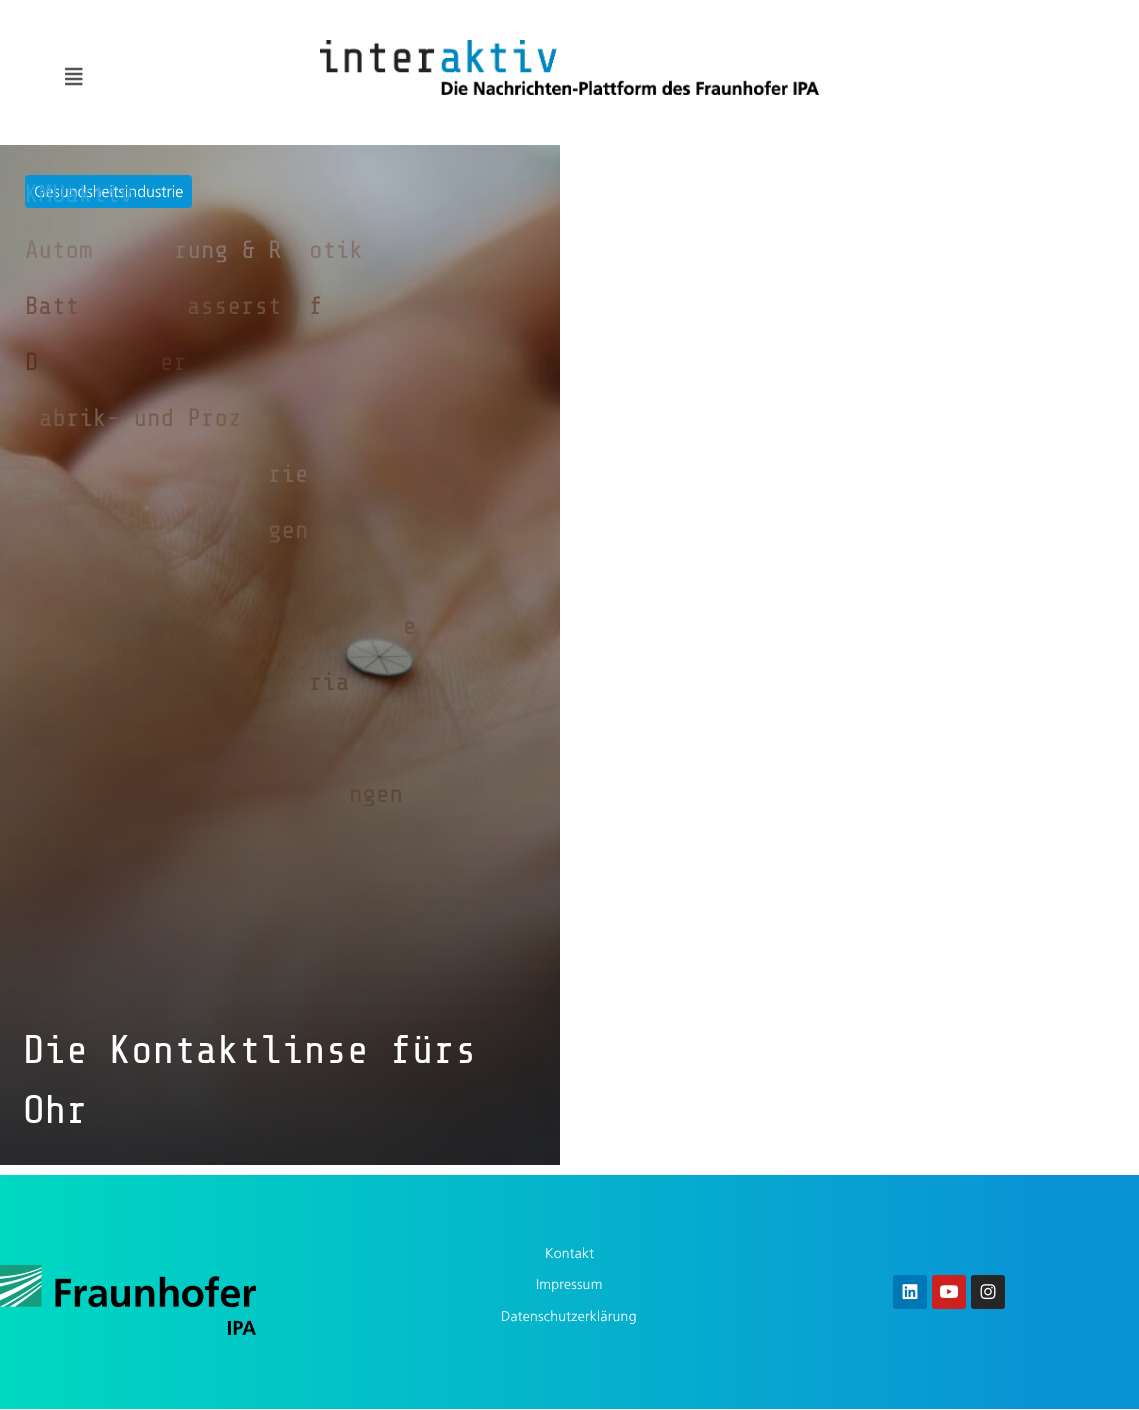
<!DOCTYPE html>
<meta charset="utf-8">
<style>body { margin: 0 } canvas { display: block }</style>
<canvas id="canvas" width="1139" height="1410"></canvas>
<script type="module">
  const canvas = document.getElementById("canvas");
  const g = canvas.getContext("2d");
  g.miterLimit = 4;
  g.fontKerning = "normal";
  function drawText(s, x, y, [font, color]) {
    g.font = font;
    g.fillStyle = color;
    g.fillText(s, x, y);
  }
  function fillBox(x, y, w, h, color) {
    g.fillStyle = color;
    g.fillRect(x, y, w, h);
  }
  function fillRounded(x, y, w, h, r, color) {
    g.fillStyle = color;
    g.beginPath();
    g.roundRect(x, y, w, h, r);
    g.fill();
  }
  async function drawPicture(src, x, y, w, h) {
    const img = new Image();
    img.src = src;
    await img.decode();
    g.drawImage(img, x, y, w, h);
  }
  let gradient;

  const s1 = ["300 16px Frutiger", "#FFFFFF"];
  const s2 = ["25px Share Tech Mono", "#2CA4DB"];
  const s3 = ["25px Share Tech Mono", "#85746A"];
  const s4 = ["25px Share Tech Mono", "#714F43"];
  const s5 = ["25px Share Tech Mono", "#593222"];
  const s6 = ["25px Share Tech Mono", "#785C4F"];
  const s7 = ["25px Share Tech Mono", "#7F665A"];
  const s8 = ["25px Share Tech Mono", "#705848"];
  const s9 = ["25px Share Tech Mono", "#67503E"];
  const s10 = ["25px Share Tech Mono", "#5D4736"];
  const s11 = ["40px Share Tech Mono", "#FFFFFF"];
  const s12 = ["300 14px Frutiger", "#FFFFFF"];

  fillBox(0, 0, 1139, 1410, "#FFFFFF");
  await drawPicture("pic1.png", 320, 40, 499, 55);
  await drawPicture("pic2.png", 65, 67, 18, 19);
  await drawPicture("pic3.png", 0, 145, 560, 1020);
  fillRounded(25, 175, 167, 33, 4, "#0995D5");
  drawText("Gesundsheitsindustrie", 34, 197, s1);
  drawText("KMUaktiv", 25, 202, s2);
  drawText("Autom", 25, 258, s3);
  drawText("rung & R", 174, 258, s3);
  drawText("otik", 309, 258, s3);
  drawText("Batt", 25, 314, s4);
  drawText("asserst", 187, 314, s4);
  drawText("f", 309, 314, s4);
  drawText("D", 25, 370, s5);
  drawText("er", 160, 370, s5);
  drawText("abrik- und Proz", 39, 426, s6);
  drawText("rie", 268, 482, s7);
  drawText("gen", 268, 538, s8);
  drawText("e", 403, 634, s9);
  drawText("ria", 309, 690, s10);
  drawText("ngen", 349, 802, s10);
  drawText("Die Kontaktlinse fürs", 23, 1063, s11);
  drawText("Ohr", 23, 1123, s11);
  gradient = g.createLinearGradient(0, 1292, 1139, 1292);
  gradient.addColorStop(0, "#00D8C1");
  gradient.addColorStop(0.9, "#0995D5");
  g.fillStyle = gradient;
  g.fillRect(0, 1175, 1139, 234);
  await drawPicture("pic4.png", 0, 1265, 256, 70);
  g.letterSpacing = "0.25px";
  drawText("Kontakt", 545, 1258, s12);
  drawText("Impressum", 536, 1289, s12);
  drawText("Datenschutzerklärung", 501, 1321, s12);
  fillRounded(893, 1275, 34, 34, 3, "#0077B5");
  await drawPicture("pic5.png", 902, 1284, 16, 16);
  fillRounded(932, 1275, 34, 34, 3, "#CD201F");
  await drawPicture("pic6.png", 939, 1285, 20, 13);
  fillRounded(971, 1275, 34, 34, 3, "#262626");
  await drawPicture("pic7.png", 980, 1284, 16, 16);
</script>
